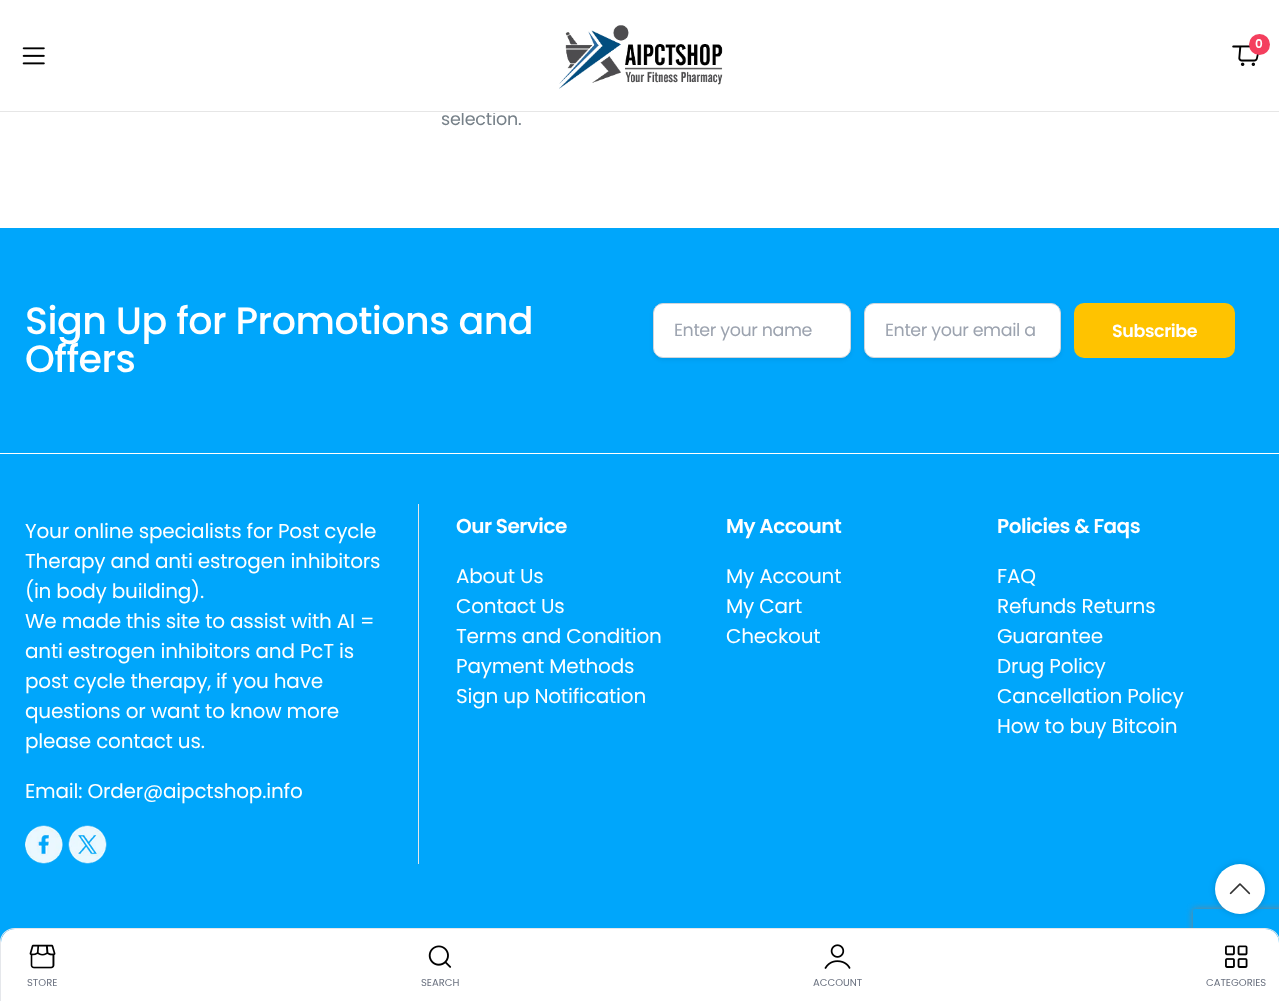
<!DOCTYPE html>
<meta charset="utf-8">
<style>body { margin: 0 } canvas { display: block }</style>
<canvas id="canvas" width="1279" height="1001"></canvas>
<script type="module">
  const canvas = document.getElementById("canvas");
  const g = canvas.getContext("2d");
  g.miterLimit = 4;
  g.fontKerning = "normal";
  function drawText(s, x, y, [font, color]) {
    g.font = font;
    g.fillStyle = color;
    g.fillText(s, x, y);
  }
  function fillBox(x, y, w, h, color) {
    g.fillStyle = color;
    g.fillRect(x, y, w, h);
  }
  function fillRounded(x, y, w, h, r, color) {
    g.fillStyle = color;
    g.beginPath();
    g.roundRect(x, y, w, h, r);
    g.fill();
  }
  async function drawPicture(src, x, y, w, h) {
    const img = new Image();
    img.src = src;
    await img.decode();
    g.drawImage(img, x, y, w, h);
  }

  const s1 = ["17.5px Poppins", "#768088"];
  const s2 = ["600 12px Poppins", "#FFFFFF"];
  const s3 = ["500 38px Poppins", "#FFFFFF"];
  const s4 = ["17.5px Poppins", "#9CA3AF"];
  const s5 = ["600 17.5px Poppins", "#FFFFFF"];
  const s6 = ["20px Poppins", "#FFFFFF"];
  const s7 = ["600 20px Poppins", "#FFFFFF"];
  const s8 = ["10px Poppins", "#6B7280"];

  fillBox(0, 0, 1279, 1001, "#FFFFFF");
  g.letterSpacing = "-0.2px";
  drawText("selection.", 441, 125, s1);
  fillBox(461, 111, 35, 2, "#FFFFFF");
  await drawPicture("pic1.png", 559, 25, 164, 64);
  await drawPicture("pic2.png", 1232, 45, 27, 21);
  g.fillStyle = "#F43F5E";
  g.beginPath();
  g.arc(1259.5, 44.5, 10.5, 0, Math.PI * 2);
  g.fill();
  drawText("0", 1255, 48, s2);
  await drawPicture("pic3.png", 22, 47, 23, 18);
  fillBox(0, 111, 1279, 1, "#E6E6E6");
  fillBox(0, 228, 1279, 715, "#00A6FB");
  g.letterSpacing = "-0.5px";
  drawText("Sign Up for Promotions and", 25, 334, s3);
  drawText("Offers", 25, 372, s3);
  g.fillStyle = "rgba(0, 0, 0, 0.07)";
  g.filter = "blur(2px)";
  g.beginPath();
  g.roundRect(653, 305, 198, 55, 10);
  g.fill();
  g.filter = "none";
  g.fillStyle = "#FFFFFF";
  g.beginPath();
  g.roundRect(653.5, 303.5, 197, 54, 9.5);
  g.fill();
  g.strokeStyle = "#D1D5DB";
  g.stroke();
  g.letterSpacing = "-0.4px";
  drawText("Enter your name", 674, 336, s4);
  g.fillStyle = "rgba(0, 0, 0, 0.07)";
  g.filter = "blur(2px)";
  g.beginPath();
  g.roundRect(864, 305, 197, 55, 10);
  g.fill();
  g.filter = "none";
  g.fillStyle = "#FFFFFF";
  g.beginPath();
  g.roundRect(864.5, 303.5, 196, 54, 9.5);
  g.fill();
  g.stroke();
  drawText("Enter your email a", 885, 336, s4);
  fillRounded(1074, 303, 161, 55, 10, "#FFC300");
  drawText("Subscribe", 1112, 337, s5);
  fillBox(0, 453, 1279, 1, "#FFFFFF");
  fillBox(418, 504, 1, 360, "#E5E7EB");
  g.letterSpacing = "-0.2px";
  drawText("Your online specialists for Post cycle", 25, 538, s6);
  drawText("Therapy and anti estrogen inhibitors", 25, 568, s6);
  drawText("(in body building).", 25, 598, s6);
  drawText("We made this site to assist with AI =", 25, 628, s6);
  drawText("anti estrogen inhibitors and PcT is", 25, 658, s6);
  drawText("post cycle therapy, if you have", 25, 688, s6);
  drawText("questions or want to know more", 25, 718, s6);
  drawText("please contact us.", 25, 748, s6);
  drawText("Email: Order@aipctshop.info", 25, 798, s6);
  await drawPicture("pic4.png", 25, 825, 38, 39);
  await drawPicture("pic5.png", 68, 825, 39, 39);
  g.letterSpacing = "-0.5px";
  drawText("Our Service", 456, 533, s7);
  g.letterSpacing = "-0.2px";
  drawText("About Us", 456, 583, s6);
  drawText("Contact Us", 456, 613, s6);
  drawText("Terms and Condition", 456, 643, s6);
  drawText("Payment Methods", 456, 673, s6);
  drawText("Sign up Notification", 456, 703, s6);
  g.letterSpacing = "-0.5px";
  drawText("My Account", 726, 533, s7);
  g.letterSpacing = "-0.2px";
  drawText("My Account", 726, 583, s6);
  drawText("My Cart", 726, 613, s6);
  drawText("Checkout", 726, 643, s6);
  g.letterSpacing = "-0.5px";
  drawText("Policies & Faqs", 997, 533, s7);
  g.letterSpacing = "-0.2px";
  drawText("FAQ", 997, 583, s6);
  drawText("Refunds Returns", 997, 613, s6);
  drawText("Guarantee", 997, 643, s6);
  drawText("Drug Policy", 997, 673, s6);
  drawText("Cancellation Policy", 997, 703, s6);
  drawText("How to buy Bitcoin", 997, 733, s6);
  g.fillStyle = "rgba(0, 0, 0, 0.17)";
  g.filter = "blur(3px)";
  g.beginPath();
  g.roundRect(1215, 864, 50, 50, 25);
  g.fill();
  g.filter = "none";
  g.save();
  g.beginPath();
  g.moveTo(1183, 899);
  g.lineTo(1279, 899);
  g.lineTo(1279, 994);
  g.lineTo(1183, 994);
  g.closePath();
  g.moveTo(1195.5, 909);
  g.lineTo(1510.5, 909);
  g.bezierCurveTo(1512, 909, 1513, 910, 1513, 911.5);
  g.lineTo(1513, 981.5);
  g.bezierCurveTo(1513, 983, 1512, 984, 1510.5, 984);
  g.lineTo(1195.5, 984);
  g.bezierCurveTo(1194, 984, 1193, 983, 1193, 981.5);
  g.lineTo(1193, 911.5);
  g.bezierCurveTo(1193, 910, 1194, 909, 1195.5, 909);
  g.closePath();
  g.clip("evenodd");
  g.fillStyle = "#808080";
  g.filter = "blur(3px)";
  g.beginPath();
  g.roundRect(1193, 909, 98, 75, 2.5);
  g.fill();
  g.filter = "none";
  g.restore();
  g.fillStyle = "#FFFFFF";
  g.beginPath();
  g.arc(1240, 889, 25, 0, Math.PI * 2);
  g.fill();
  await drawPicture("pic6.png", 1229, 883, 22, 12);
  g.beginPath();
  g.roundRect(1, 929, 1278, 72, [14, 14, 0, 0]);
  g.fill();
  g.fillStyle = "#E5E7EB";
  g.beginPath();
  g.moveTo(15, 928);
  g.lineTo(1265, 928);
  g.bezierCurveTo(1273, 928, 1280, 934, 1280, 942);
  g.lineTo(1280, 1001);
  g.lineTo(0, 1001);
  g.lineTo(0, 942);
  g.bezierCurveTo(0, 934, 7, 928, 15, 928);
  g.closePath();
  g.moveTo(15, 929);
  g.lineTo(1265, 929);
  g.bezierCurveTo(1273, 929, 1279, 935, 1279, 942);
  g.lineTo(1279, 1001);
  g.lineTo(1, 1001);
  g.lineTo(1, 942);
  g.bezierCurveTo(1, 935, 7, 929, 15, 929);
  g.closePath();
  g.fill("evenodd");
  await drawPicture("pic7.png", 29, 944, 27, 25);
  g.letterSpacing = "0px";
  drawText("STORE", 27, 986, s8);
  await drawPicture("pic8.png", 428, 945, 24, 23);
  drawText("SEARCH", 421, 986, s8);
  await drawPicture("pic9.png", 824, 944, 27, 25);
  drawText("ACCOUNT", 813, 986, s8);
  await drawPicture("pic10.png", 1225, 945, 23, 23);
  drawText("CATEGORIES", 1206, 986, s8);
</script>
